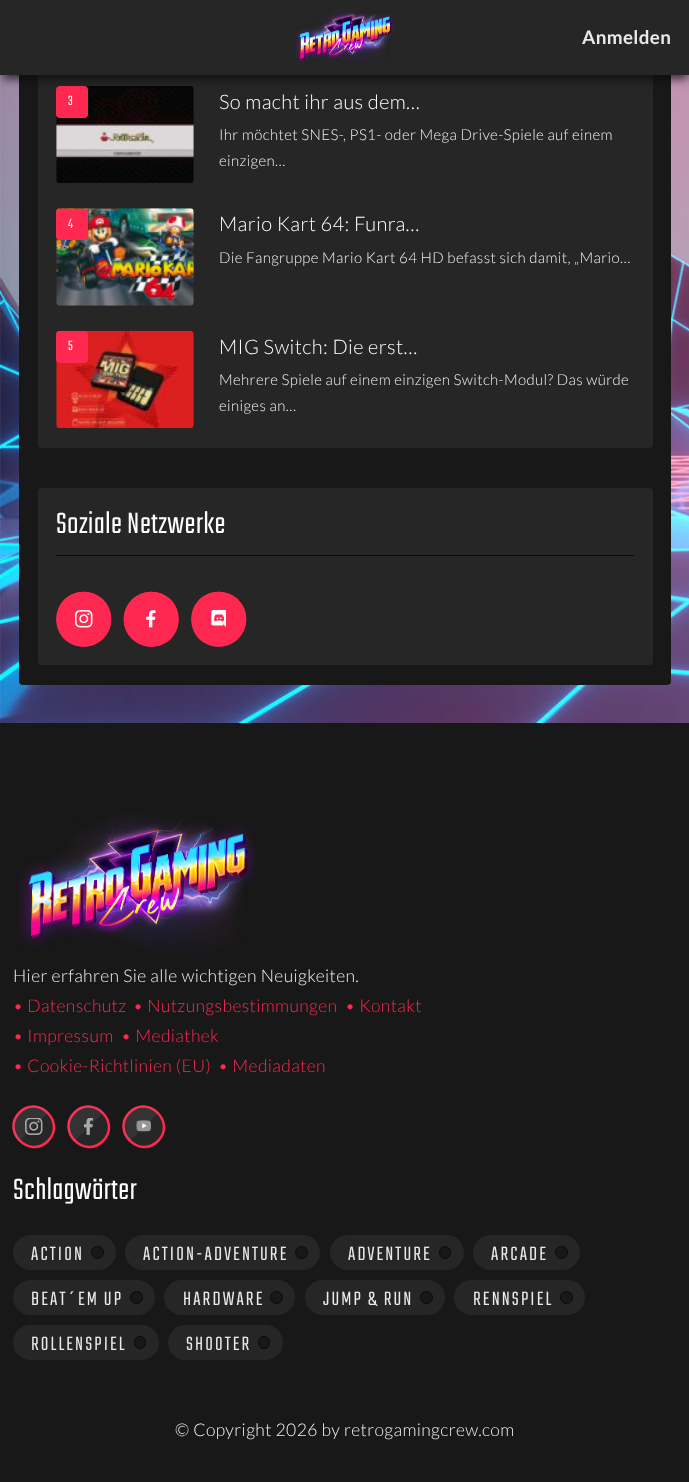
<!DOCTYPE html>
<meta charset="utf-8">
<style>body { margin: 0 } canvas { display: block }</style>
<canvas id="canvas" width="689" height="1482"></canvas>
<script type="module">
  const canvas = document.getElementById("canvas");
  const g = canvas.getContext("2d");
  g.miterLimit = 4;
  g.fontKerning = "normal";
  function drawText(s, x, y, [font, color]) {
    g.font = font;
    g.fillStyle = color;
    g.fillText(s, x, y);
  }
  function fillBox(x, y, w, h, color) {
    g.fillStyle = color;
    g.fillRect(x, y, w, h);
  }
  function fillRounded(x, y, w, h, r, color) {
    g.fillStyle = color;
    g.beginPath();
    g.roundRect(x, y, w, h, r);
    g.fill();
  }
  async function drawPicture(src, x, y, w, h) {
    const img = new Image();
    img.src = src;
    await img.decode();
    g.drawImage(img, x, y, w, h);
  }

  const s1 = ["bold 18.75px Lato", "#EAEAEA"];
  const s2 = ["300 15px Teko", "#FFFFFF"];
  const s3 = ["300 20px Lato", "#FFFFFF"];
  const s4 = ["300 15px Lato", "#F1F1F1"];
  const s5 = ["300 32.5px Teko", "#FFFFFF"];
  const s6 = ["300 17.5px Lato", "#F1F1F1"];
  const s7 = ["300 17.5px Lato", "#FF2851"];
  const s8 = ["300 21.25px Teko", "#EAEAEA"];

  fillBox(0, 0, 689, 1482, "#FFFFFF");
  await drawPicture("pic1.png", 0, 75, 689, 648);
  fillRounded(19, -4, 652, 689, 4, "#181818");
  fillRounded(38, -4, 615, 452, 4, "#262626");
  await drawPicture("pic3.png", 56, 86, 138, 97);
  fillRounded(56, 86, 32, 32, 4, "#FF2851");
  g.fillStyle = "rgba(10, 10, 10, 0.75)";
  g.filter = "blur(5px)";
  g.beginPath();
  g.rect(3, 9, 685, 70);
  g.fill();
  g.filter = "none";
  fillBox(0, 0, 689, 75, "#262626");
  await drawPicture("pic2.png", 295, 9, 101, 55);
  g.letterSpacing = "0.38px";
  drawText("Anmelden", 582, 44, s1);
  g.letterSpacing = "2px";
  drawText("3", 68, 105, s2);
  g.letterSpacing = "0.4px";
  drawText("So macht ihr aus dem…", 219, 109, s3);
  g.letterSpacing = "0.38px";
  drawText("Ihr möchtet SNES-, PS1- oder Mega Drive-Spiele auf einem", 219, 140, s4);
  drawText("einzigen…", 219, 166, s4);
  await drawPicture("pic4.png", 56, 208, 138, 98);
  fillRounded(56, 209, 32, 31, 4, "#FF2851");
  g.letterSpacing = "2px";
  drawText("4", 68, 228, s2);
  g.letterSpacing = "0.4px";
  drawText("Mario Kart 64: Funra…", 219, 231, s3);
  g.letterSpacing = "0.38px";
  drawText("Die Fangruppe Mario Kart 64 HD befasst sich damit, „Mario…", 219, 263, s4);
  await drawPicture("pic5.png", 56, 330, 138, 99);
  fillRounded(56, 331, 32, 32, 4, "#FF2851");
  g.letterSpacing = "2px";
  drawText("5", 68, 350, s2);
  g.letterSpacing = "0.4px";
  drawText("MIG Switch: Die erst…", 219, 354, s3);
  g.letterSpacing = "0.38px";
  drawText("Mehrere Spiele auf einem einzigen Switch-Modul? Das würde", 219, 385, s4);
  drawText("einiges an…", 219, 411, s4);
  fillRounded(38, 488, 615, 177, 4, "#262626");
  fillBox(56, 555, 578, 1, "#0A0A0A");
  g.letterSpacing = "0.6px";
  drawText("Soziale Netzwerke", 56, 533, s5);
  g.fillStyle = "#FF2851";
  g.beginPath();
  g.moveTo(64, 600);
  g.bezierCurveTo(75, 589, 92, 589, 103, 600);
  g.bezierCurveTo(114, 610, 114, 628, 103, 639);
  g.bezierCurveTo(92, 649, 75, 649, 64, 639);
  g.bezierCurveTo(54, 628, 54, 610, 64, 600);
  g.closePath();
  g.fill();
  g.beginPath();
  g.moveTo(65, 600.5);
  g.bezierCurveTo(75.5, 590.5, 92, 590.5, 102.5, 600.5);
  g.bezierCurveTo(112.5, 611, 112.5, 627.5, 102.5, 637.5);
  g.bezierCurveTo(92, 648, 75.5, 648, 65, 637.5);
  g.bezierCurveTo(55, 627.5, 55, 611, 65, 600.5);
  g.closePath();
  g.strokeStyle = "#FF2851";
  g.lineWidth = 2.5;
  g.stroke();
  await drawPicture("pic6.png", 75, 610, 18, 18);
  g.beginPath();
  g.moveTo(132, 600);
  g.bezierCurveTo(143, 589, 160, 589, 171, 600);
  g.bezierCurveTo(181, 610, 181, 628, 171, 639);
  g.bezierCurveTo(160, 649, 143, 649, 132, 639);
  g.bezierCurveTo(121, 628, 121, 610, 132, 600);
  g.closePath();
  g.fill();
  g.beginPath();
  g.moveTo(132.5, 600.5);
  g.bezierCurveTo(143, 590.5, 159.5, 590.5, 170, 600.5);
  g.bezierCurveTo(180, 611, 180, 627.5, 170, 637.5);
  g.bezierCurveTo(159.5, 648, 143, 648, 132.5, 637.5);
  g.bezierCurveTo(122.5, 627.5, 122.5, 611, 132.5, 600.5);
  g.closePath();
  g.stroke();
  await drawPicture("pic7.png", 146, 610, 10, 18);
  g.beginPath();
  g.moveTo(199, 600);
  g.bezierCurveTo(210, 589, 227, 589, 238, 600);
  g.bezierCurveTo(249, 610, 249, 628, 238, 639);
  g.bezierCurveTo(227, 649, 210, 649, 199, 639);
  g.bezierCurveTo(189, 628, 189, 610, 199, 600);
  g.closePath();
  g.fill();
  g.beginPath();
  g.moveTo(200, 600.5);
  g.bezierCurveTo(210.5, 590.5, 227, 590.5, 237.5, 600.5);
  g.bezierCurveTo(247.5, 611, 247.5, 627.5, 237.5, 637.5);
  g.bezierCurveTo(227, 648, 210.5, 648, 200, 637.5);
  g.bezierCurveTo(190, 627.5, 190, 611, 200, 600.5);
  g.closePath();
  g.stroke();
  await drawPicture("pic8.png", 211, 610, 15, 17);
  fillBox(0, 723, 689, 759, "#181818");
  await drawPicture("pic9.png", 18, 813, 240, 141);
  g.letterSpacing = "0.38px";
  drawText("Hier erfahren Sie alle wichtigen Neuigkeiten.", 13, 982, s6);
  drawText("• Datenschutz", 13, 1012, s7);
  drawText("• Nutzungsbestimmungen", 133, 1012, s7);
  drawText("• Kontakt", 345, 1012, s7);
  drawText("• Impressum", 13, 1042, s7);
  drawText("• Mediathek", 121, 1042, s7);
  drawText("• Cookie-Richtlinien (EU)", 13, 1072, s7);
  drawText("• Mediadaten", 218, 1072, s7);
  g.fillStyle = "#262626";
  g.beginPath();
  g.moveTo(19, 1112);
  g.bezierCurveTo(38, 1092, 68, 1122, 49, 1142);
  g.bezierCurveTo(29, 1162, -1, 1131, 19, 1112);
  g.closePath();
  g.fill();
  g.beginPath();
  g.moveTo(19.5, 1112.5);
  g.bezierCurveTo(38, 1094, 66.5, 1122.5, 48, 1141);
  g.bezierCurveTo(29.5, 1159.5, 1, 1131, 19.5, 1112.5);
  g.closePath();
  g.stroke();
  g.fillStyle = "rgba(170, 170, 170, 0.1)";
  g.beginPath();
  g.moveTo(18.5, 1112);
  g.bezierCurveTo(27, 1103.5, 40.5, 1103.5, 49, 1112);
  g.lineTo(18.5, 1142);
  g.bezierCurveTo(10.5, 1133.5, 10.5, 1120, 18.5, 1112);
  g.closePath();
  g.fill();
  await drawPicture("pic10.png", 25, 1118, 18, 17);
  g.fillStyle = "#262626";
  g.beginPath();
  g.moveTo(74, 1112);
  g.bezierCurveTo(93, 1092, 123, 1122, 104, 1142);
  g.bezierCurveTo(84, 1162, 54, 1131, 74, 1112);
  g.closePath();
  g.fill();
  g.beginPath();
  g.moveTo(74.5, 1112.5);
  g.bezierCurveTo(93, 1094, 121.5, 1122.5, 103, 1141);
  g.bezierCurveTo(84.5, 1159.5, 56, 1131, 74.5, 1112.5);
  g.closePath();
  g.stroke();
  g.fillStyle = "rgba(170, 170, 170, 0.1)";
  g.beginPath();
  g.moveTo(73.5, 1112);
  g.bezierCurveTo(82, 1103.5, 95.5, 1103.5, 104, 1112);
  g.lineTo(73.5, 1142);
  g.bezierCurveTo(65.5, 1133.5, 65.5, 1120, 73.5, 1112);
  g.closePath();
  g.fill();
  await drawPicture("pic11.png", 84, 1118, 9, 17);
  g.fillStyle = "#262626";
  g.beginPath();
  g.moveTo(129, 1112);
  g.bezierCurveTo(148, 1092, 178, 1122, 159, 1142);
  g.bezierCurveTo(139, 1162, 109, 1131, 129, 1112);
  g.closePath();
  g.fill();
  g.beginPath();
  g.moveTo(129.5, 1112.5);
  g.bezierCurveTo(148, 1094, 176.5, 1122.5, 158, 1141);
  g.bezierCurveTo(139.5, 1159.5, 111, 1131, 129.5, 1112.5);
  g.closePath();
  g.stroke();
  g.fillStyle = "rgba(170, 170, 170, 0.1)";
  g.beginPath();
  g.moveTo(128.5, 1112);
  g.bezierCurveTo(137, 1103.5, 150.5, 1103.5, 159, 1112);
  g.lineTo(128.5, 1142);
  g.bezierCurveTo(120.5, 1133.5, 120.5, 1120, 128.5, 1112);
  g.closePath();
  g.fill();
  await drawPicture("pic12.png", 136, 1120, 15, 12);
  g.letterSpacing = "0.6px";
  drawText("Schlagwörter", 13, 1199, s5);
  fillRounded(13, 1235, 103, 35, 17.5, "#262626");
  g.letterSpacing = "2.1px";
  drawText("ACTION", 31, 1260, s8);
  g.fillStyle = "#181818";
  g.beginPath();
  g.arc(97.5, 1252.5, 6, 0, Math.PI * 2);
  g.fill();
  g.strokeStyle = "#0A0A0A";
  g.lineWidth = 1;
  g.stroke();
  fillRounded(125, 1235, 195, 35, 17.5, "#262626");
  drawText("ACTION-ADVENTURE", 143, 1260, s8);
  g.fillStyle = "#181818";
  g.beginPath();
  g.arc(301.5, 1252.5, 6, 0, Math.PI * 2);
  g.fill();
  g.stroke();
  fillRounded(330, 1235, 134, 35, 17.5, "#262626");
  drawText("ADVENTURE", 348, 1260, s8);
  g.fillStyle = "#181818";
  g.beginPath();
  g.roundRect(439.5, 1246.5, 11, 12, 5.5);
  g.fill();
  g.stroke();
  fillRounded(473, 1235, 107, 35, 17.5, "#262626");
  drawText("ARCADE", 491, 1260, s8);
  g.fillStyle = "#181818";
  g.beginPath();
  g.arc(561.5, 1252.5, 6, 0, Math.PI * 2);
  g.fill();
  g.stroke();
  fillRounded(13, 1280, 142, 35, 17.5, "#262626");
  drawText("BEAT´EM UP", 31, 1305, s8);
  g.fillStyle = "#181818";
  g.beginPath();
  g.arc(136.5, 1297.5, 6, 0, Math.PI * 2);
  g.fill();
  g.stroke();
  fillRounded(164, 1280, 131, 35, 17.5, "#262626");
  drawText("HARDWARE", 183, 1305, s8);
  g.fillStyle = "#181818";
  g.beginPath();
  g.arc(276.5, 1297.5, 6, 0, Math.PI * 2);
  g.fill();
  g.stroke();
  fillRounded(305, 1280, 140, 35, 17.5, "#262626");
  drawText("JUMP & RUN", 323, 1305, s8);
  g.fillStyle = "#181818";
  g.beginPath();
  g.arc(426.5, 1297.5, 6, 0, Math.PI * 2);
  g.fill();
  g.stroke();
  fillRounded(454, 1280, 131, 35, 17.5, "#262626");
  drawText("RENNSPIEL", 473, 1305, s8);
  g.fillStyle = "#181818";
  g.beginPath();
  g.arc(566.5, 1297.5, 6, 0, Math.PI * 2);
  g.fill();
  g.stroke();
  fillRounded(13, 1325, 146, 35, 17.5, "#262626");
  drawText("ROLLENSPIEL", 31, 1350, s8);
  g.fillStyle = "#181818";
  g.beginPath();
  g.roundRect(134.5, 1336.5, 11, 12, 5.5);
  g.fill();
  g.stroke();
  fillRounded(168, 1325, 115, 35, 17.5, "#262626");
  drawText("SHOOTER", 186, 1350, s8);
  g.fillStyle = "#181818";
  g.beginPath();
  g.roundRect(258.5, 1336.5, 11, 12, 5.5);
  g.fill();
  g.stroke();
  g.letterSpacing = "0.38px";
  drawText("© Copyright 2026 by retrogamingcrew.com", 175, 1436, s6);
</script>
